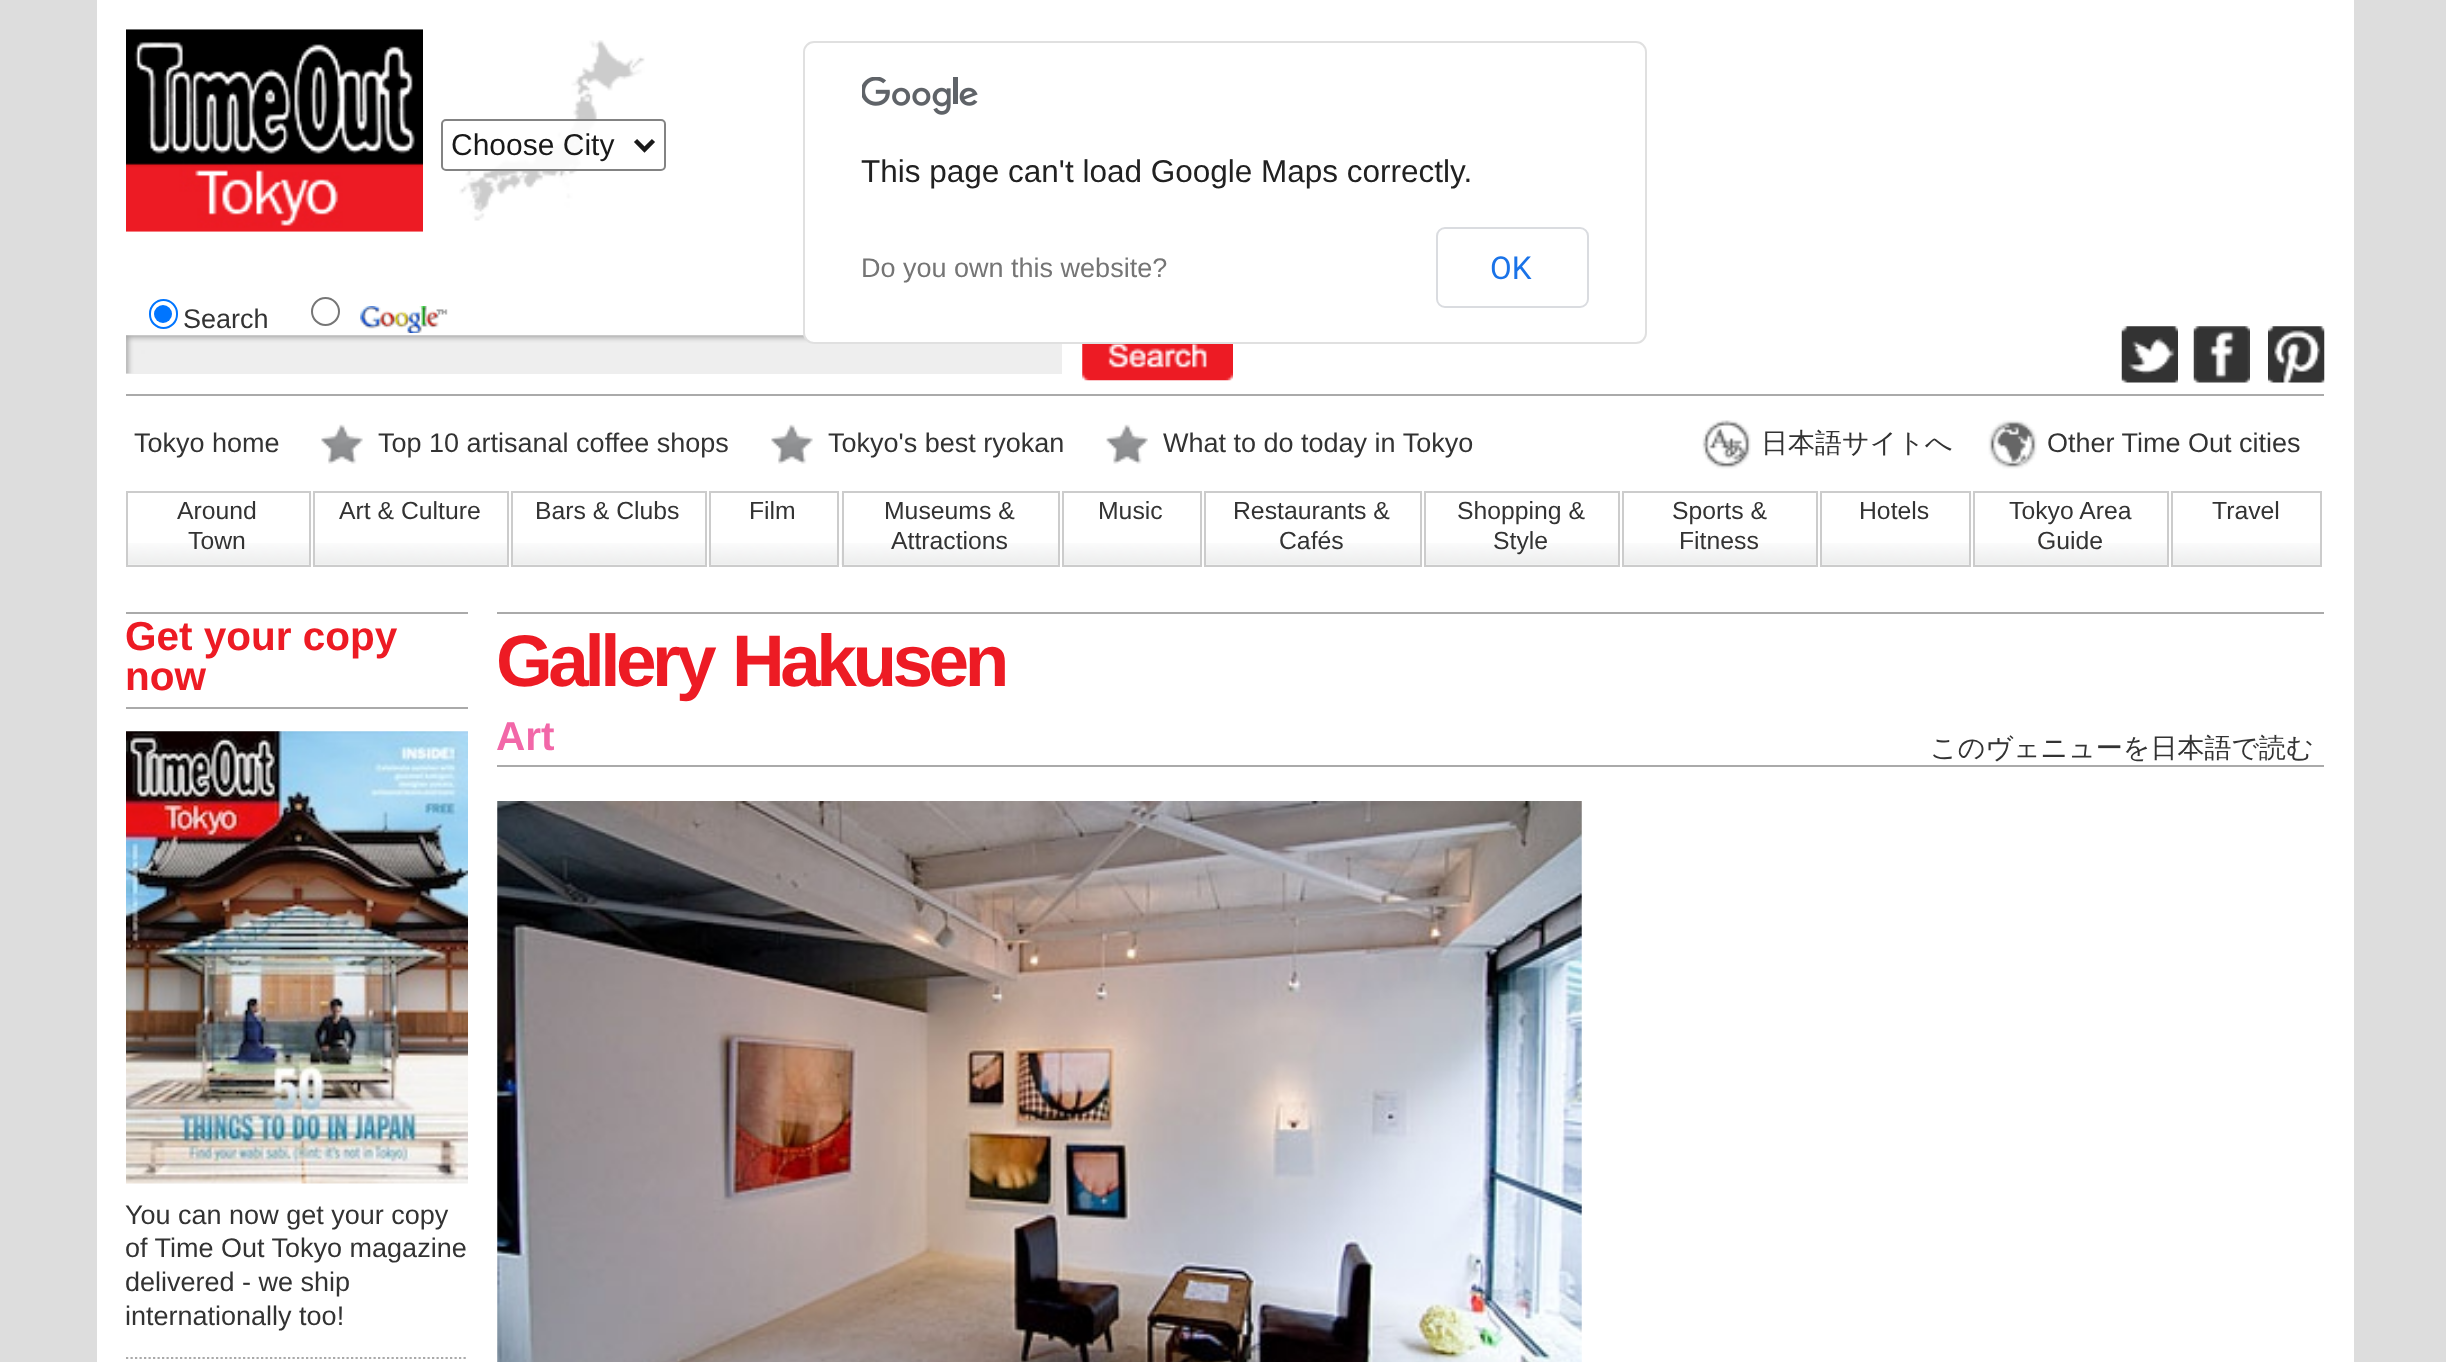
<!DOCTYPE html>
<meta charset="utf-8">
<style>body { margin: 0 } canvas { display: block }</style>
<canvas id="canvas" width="2446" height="1362"></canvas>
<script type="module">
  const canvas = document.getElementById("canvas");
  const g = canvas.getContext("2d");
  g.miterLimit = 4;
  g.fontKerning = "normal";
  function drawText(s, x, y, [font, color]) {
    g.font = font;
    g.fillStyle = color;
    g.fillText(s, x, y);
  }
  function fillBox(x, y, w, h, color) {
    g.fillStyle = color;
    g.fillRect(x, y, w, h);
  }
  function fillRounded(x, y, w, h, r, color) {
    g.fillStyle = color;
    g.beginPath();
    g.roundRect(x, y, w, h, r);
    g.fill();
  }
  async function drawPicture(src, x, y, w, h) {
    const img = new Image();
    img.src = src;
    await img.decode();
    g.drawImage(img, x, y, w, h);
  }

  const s1 = ["30px Liberation Sans", "#191919"];
  const s2 = ["31.5px Liberation Sans", "#212121"];
  const s3 = ["27px Liberation Sans", "#757575"];
  const s4 = ["31.5px Roboto", "#1A73E8"];
  const s5 = ["bold 73px Liberation Sans", "#ED1B24"];
  const s6 = ["bold 40.5px Liberation Sans", "#F267A8"];
  const s7 = ["500 27px WenQuanYi Zen Hei", "#333333"];
  const s8 = ["bold 40.5px Liberation Sans", "#ED1B24"];
  const s9 = ["27px Liberation Sans", "#333333"];
  const s10 = ["24.75px Liberation Sans", "#333333"];

  fillBox(0, 0, 2446, 1362, "#DDDDDD");
  fillBox(97, 0, 2257, 1362, "#FFFFFF");
  await drawPicture("pic1.png", 126, 29, 297, 203);
  await drawPicture("pic2.png", 459, 40, 186, 181);
  fillRounded(441, 119, 225, 52, 5, "rgba(255, 255, 255, 0.9)");
  g.beginPath();
  g.roundRect(442, 120, 223, 50, 4);
  g.strokeStyle = "rgba(118, 118, 118, 0.9)";
  g.lineWidth = 2;
  g.stroke();
  g.beginPath();
  g.moveTo(635.5, 140.5);
  g.lineTo(644.5, 149.5);
  g.lineTo(653.5, 140.5);
  g.strokeStyle = "#1A1A1A";
  g.lineWidth = 4.5;
  g.stroke();
  drawText("Choose City", 451, 155, s1);
  fillBox(126, 335, 936, 39, "#EEEEEE");
  await drawPicture("pic7.png", 126, 335, 936, 39);
  fillRounded(803, 41, 844, 303, 11, "#FFFFFF");
  g.beginPath();
  g.roundRect(804, 42, 842, 301, 10);
  g.strokeStyle = "rgba(0, 0, 0, 0.12)";
  g.lineWidth = 2;
  g.stroke();
  await drawPicture("pic3.png", 862, 77, 116, 38);
  drawText("This page can't load Google Maps correctly.", 861, 182, s2);
  drawText("Do you own this website?", 861, 277, s3);
  g.beginPath();
  g.roundRect(1437, 228, 151, 79, 8);
  g.strokeStyle = "#DADCE0";
  g.stroke();
  drawText("OK", 1490, 279, s4);
  await drawPicture("pic4.png", 497, 801, 1085, 561);
  fillBox(497, 612, 1827, 2, "#AAAAAA");
  g.letterSpacing = "-4.5px";
  drawText("Gallery", 496, 686, s5);
  drawText("Hakusen", 732, 686, s5);
  fillBox(497, 765, 1827, 2, "#AAAAAA");
  g.letterSpacing = "0px";
  drawText("Art", 496, 750, s6);
  drawText("このヴェニューを日本語で読む", 1930, 757, s7);
  fillBox(126, 612, 342, 2, "#AAAAAA");
  fillBox(126, 707, 342, 2, "#AAAAAA");
  drawText("Get your copy", 125, 650, s8);
  drawText("now", 125, 690, s8);
  await drawPicture("pic5.png", 126, 731, 342, 453);
  drawText("You can now get your copy", 125, 1224, s9);
  drawText("of Time Out Tokyo magazine", 125, 1257, s9);
  drawText("delivered - we ship", 125, 1291, s9);
  drawText("internationally too!", 125, 1325, s9);
  g.beginPath();
  g.moveTo(126, 1358);
  g.lineTo(468, 1358);
  g.strokeStyle = "#AAAAAA";
  g.lineWidth = 2.2;
  g.setLineDash([2.25, 2.25]);
  g.stroke();
  fillBox(126, 394, 2198, 2, "#AAAAAA");
  g.beginPath();
  g.roundRect(150, 300, 27, 28, 13.5);
  g.strokeStyle = "#0075FF";
  g.lineWidth = 2;
  g.setLineDash([]);
  g.stroke();
  g.fillStyle = "#0075FF";
  g.beginPath();
  g.arc(163, 314, 9, 0, Math.PI * 2);
  g.fill();
  drawText("Search", 183, 328, s9);
  g.beginPath();
  g.arc(325.5, 311.5, 13.5, 0, Math.PI * 2);
  g.strokeStyle = "#767676";
  g.stroke();
  await drawPicture("pic6.png", 360, 306, 88, 27);
  await drawPicture("pic8.png", 1082, 344, 151, 37);
  await drawPicture("pic9.png", 2121, 326, 57, 57);
  await drawPicture("pic10.png", 2193, 326, 57, 57);
  await drawPicture("pic11.png", 2268, 326, 57, 57);
  drawText("Tokyo home", 134, 452, s9);
  await drawPicture("pic12.png", 321, 424, 42, 40);
  drawText("Top 10 artisanal coffee shops", 378, 452, s9);
  await drawPicture("pic12.png", 771, 424, 42, 40);
  drawText("Tokyo's best ryokan", 828, 452, s9);
  await drawPicture("pic13.png", 1106, 424, 42, 40);
  drawText("What to do today in Tokyo", 1163, 452, s9);
  await drawPicture("pic14.png", 1702, 420, 49, 49);
  drawText("日本語サイトへ", 1761, 452, s7);
  await drawPicture("pic15.png", 1988, 420, 49, 49);
  drawText("Other Time Out cities", 2047, 452, s9);
  await drawPicture("pic16.png", 128, 543, 181, 22);
  g.strokeStyle = "#CCCCCC";
  g.strokeRect(127, 492, 183, 74);
  drawText("Around", 177, 519, s10);
  drawText("Town", 188, 549, s10);
  await drawPicture("pic17.png", 312, 543, 195, 22);
  g.strokeRect(314, 492, 194, 74);
  drawText("Art & Culture", 339, 519, s10);
  await drawPicture("pic17.png", 510, 543, 195, 22);
  g.strokeRect(512, 492, 194, 74);
  drawText("Bars & Clubs", 535, 519, s10);
  await drawPicture("pic18.png", 708, 543, 132, 22);
  g.strokeRect(710, 492, 128, 74);
  drawText("Film", 749, 519, s10);
  await drawPicture("pic19.png", 841, 543, 217, 22);
  g.strokeRect(843, 492, 216, 74);
  drawText("Museums &", 884, 519, s10);
  drawText("Attractions", 891, 549, s10);
  await drawPicture("pic20.png", 1064, 543, 136, 22);
  g.strokeRect(1063, 492, 138, 74);
  drawText("Music", 1098, 519, s10);
  await drawPicture("pic21.png", 1203, 543, 217, 22);
  g.strokeRect(1205, 492, 216, 74);
  drawText("Restaurants &", 1233, 519, s10);
  drawText("Cafés", 1279, 549, s10);
  await drawPicture("pic22.png", 1426, 543, 192, 22);
  g.strokeRect(1425, 492, 194, 74);
  drawText("Shopping &", 1457, 519, s10);
  drawText("Style", 1493, 549, s10);
  await drawPicture("pic22.png", 1624, 543, 192, 22);
  g.strokeRect(1623, 492, 194, 74);
  drawText("Sports &", 1672, 519, s10);
  drawText("Fitness", 1679, 549, s10);
  await drawPicture("pic23.png", 1822, 543, 147, 22);
  g.strokeRect(1821, 492, 149, 74);
  drawText("Hotels", 1859, 519, s10);
  await drawPicture("pic22.png", 1975, 543, 192, 22);
  g.strokeRect(1974, 492, 194, 74);
  drawText("Tokyo Area", 2009, 519, s10);
  drawText("Guide", 2037, 549, s10);
  await drawPicture("pic23.png", 2173, 543, 147, 22);
  g.strokeRect(2172, 492, 149, 74);
  drawText("Travel", 2212, 519, s10);
</script>
